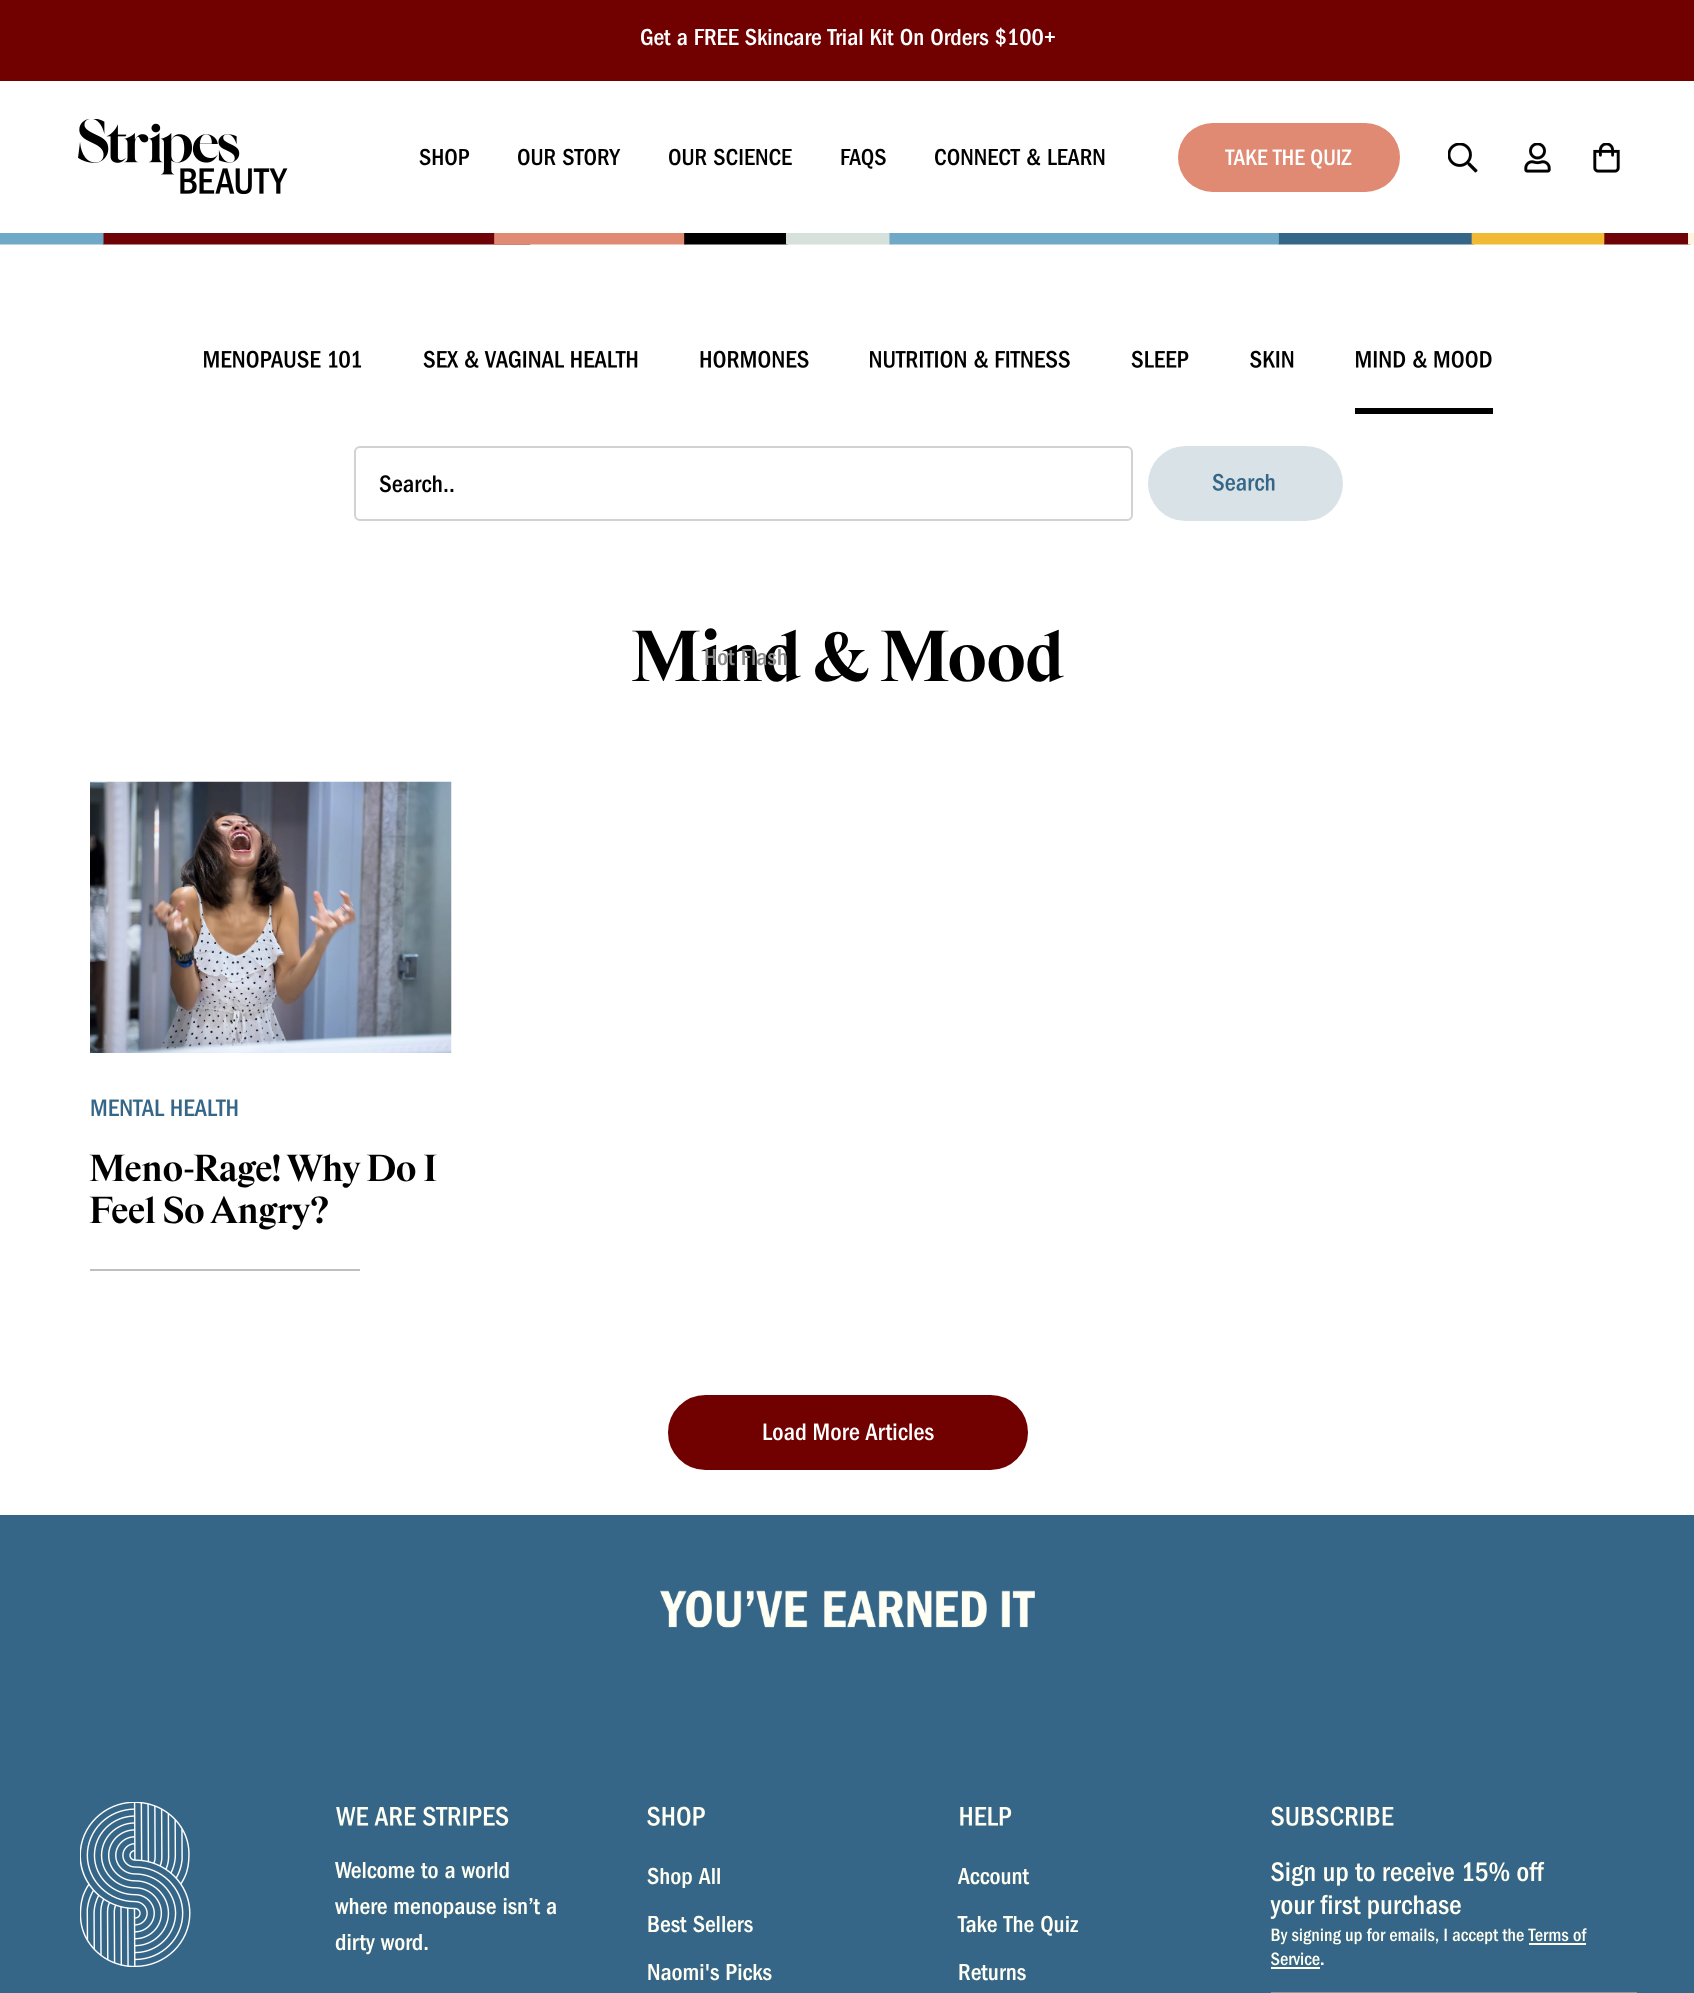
<!DOCTYPE html>
<meta charset="utf-8">
<style>body { margin: 0 } canvas { display: block }</style>
<canvas id="canvas" width="1694" height="1993"></canvas>
<script type="module">
  const canvas = document.getElementById("canvas");
  const g = canvas.getContext("2d");
  g.miterLimit = 4;
  g.fontKerning = "normal";
  function drawText(s, x, y, [font, color]) {
    g.font = font;
    g.fillStyle = color;
    g.fillText(s, x, y);
  }
  function fillBox(x, y, w, h, color) {
    g.fillStyle = color;
    g.fillRect(x, y, w, h);
  }
  function fillRounded(x, y, w, h, r, color) {
    g.fillStyle = color;
    g.beginPath();
    g.roundRect(x, y, w, h, r);
    g.fill();
  }
  async function drawPicture(src, x, y, w, h) {
    const img = new Image();
    img.src = src;
    await img.decode();
    g.drawImage(img, x, y, w, h);
  }

  const s1 = ["500 24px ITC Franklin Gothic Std", "#FFFFFF"];
  const s2 = ["500 24px ITC Franklin Gothic Std", "#000000"];
  const s3 = ["bold 69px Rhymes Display", "#000000"];
  const s4 = ["500 24px ITC Franklin Gothic Std", "#8A8A8A"];
  const s5 = ["bold 36px Rhymes Display", "#000000"];
  const s6 = ["500 24px ITC Franklin Gothic Std", "#FFFFF3"];

  fillBox(0, 0, 1694, 1993, "#FFFFFF");
  fillBox(0, 0, 1694, 81, "#710000");
  drawText("Get a FREE Skincare Trial Kit On Orders $100+", 640, 45, s1);
  await drawPicture("pic1.png", 78, 119, 210, 75);
  drawText("SHOP", 419, 165, s2);
  drawText("Mind & Mood", 631, 681, s3);
  drawText("Hot Flash", 704, 665, s4);
  drawText("OUR STORY", 517, 165, s2);
  drawText("OUR SCIENCE", 668, 165, s2);
  drawText("FAQS", 840, 165, s2);
  drawText("CONNECT & LEARN", 934, 165, s2);
  fillRounded(1178, 123, 222, 69, 34.5, "#E08A73");
  await drawPicture("pic2.png", 1225, 149, 127, 20);
  await drawPicture("pic3.png", 1448, 143, 30, 30);
  await drawPicture("pic4.png", 1524, 143, 27, 30);
  await drawPicture("pic5.png", 1593, 143, 27, 30);
  await drawPicture("pic6.png", 0, 233, 1694, 12);
  await drawPicture("pic7.png", 204, 350, 158, 18);
  await drawPicture("pic8.png", 423, 350, 215, 18);
  await drawPicture("pic9.png", 700, 350, 109, 18);
  await drawPicture("pic10.png", 870, 350, 200, 18);
  await drawPicture("pic11.png", 1131, 350, 58, 18);
  await drawPicture("pic12.png", 1250, 350, 44, 18);
  fillBox(1355, 408, 138, 6, "#000000");
  await drawPicture("pic13.png", 1356, 350, 136, 18);
  g.beginPath();
  g.roundRect(355, 447, 777, 73, 5);
  g.strokeStyle = "#D2D2D2";
  g.lineWidth = 2;
  g.stroke();
  await drawPicture("pic14.png", 379, 475, 75, 18);
  fillRounded(1148, 446, 195, 75, 37.5, "#D9E2E7");
  await drawPicture("pic15.png", 1212, 473, 63, 18);
  await drawPicture("pic16.png", 90, 781, 362, 272);
  await drawPicture("pic17.png", 91, 1099, 147, 17);
  drawText("Meno-Rage! Why Do I", 89, 1181, s5);
  drawText("Feel So Angry?", 89, 1223, s5);
  fillBox(90, 1269, 270, 2, "#BFBFBF");
  g.fillStyle = "#710000";
  g.beginPath();
  g.roundRect(669.5, 1396.5, 357, 72, 36);
  g.fill();
  g.strokeStyle = "#710000";
  g.lineWidth = 3;
  g.stroke();
  await drawPicture("pic18.png", 763, 1423, 171, 18);
  fillBox(0, 1515, 1694, 478, "#356687");
  await drawPicture("pic19.png", 660, 1590, 375, 38);
  await drawPicture("pic20.png", 80, 1802, 111, 165);
  await drawPicture("pic21.png", 336, 1806, 173, 20);
  drawText("Welcome to a world", 335, 1878, s6);
  drawText("where menopause isn’t a", 335, 1914, s6);
  drawText("dirty word.", 335, 1950, s6);
  await drawPicture("pic22.png", 647, 1806, 58, 20);
  drawText("Shop All", 647, 1884, s6);
  drawText("Best Sellers", 647, 1932, s6);
  drawText("Naomi's Picks", 647, 1980, s6);
  await drawPicture("pic23.png", 960, 1807, 52, 19);
  drawText("Account", 958, 1884, s6);
  drawText("Take The Quiz", 958, 1932, s6);
  drawText("Returns", 958, 1980, s6);
  await drawPicture("pic24.png", 1271, 1806, 123, 20);
  await drawPicture("pic25.png", 1271, 1861, 274, 26);
  await drawPicture("pic26.png", 1270, 1894, 191, 25);
  await drawPicture("pic27.png", 1271, 1928, 253, 17);
  await drawPicture("pic28.png", 1528, 1928, 59, 14);
  fillBox(1529, 1943, 57, 2, "#FFFFF3");
  await drawPicture("pic29.png", 1271, 1952, 49, 14);
  g.beginPath();
  g.moveTo(1323.5, 1962.5);
  g.lineTo(1323.5, 1965);
  g.lineTo(1321, 1965);
  g.lineTo(1321, 1962.5);
  g.closePath();
  g.fill();
  fillBox(1271, 1967, 49, 2, "#FFFFF3");
  g.strokeStyle = "#949596";
  g.lineWidth = 2;
  g.strokeRect(1272, 1993, 364, 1);
</script>
